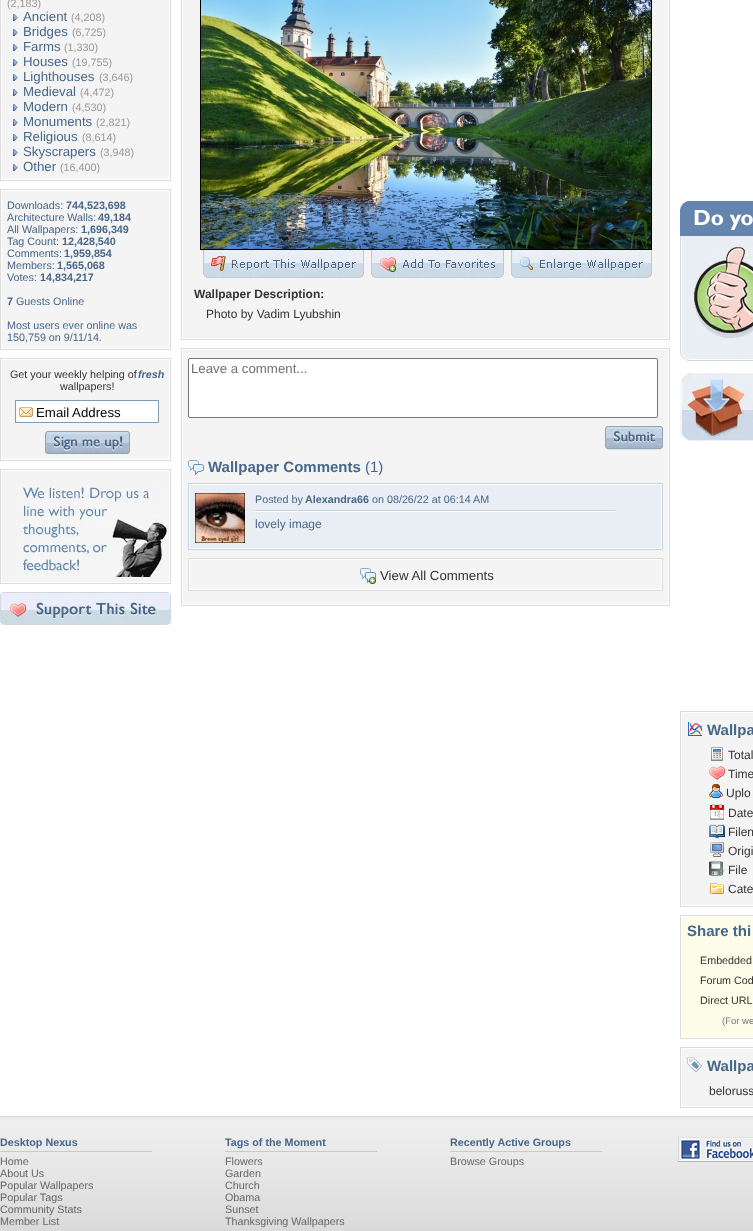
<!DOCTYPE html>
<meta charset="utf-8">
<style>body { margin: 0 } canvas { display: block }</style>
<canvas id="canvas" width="753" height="1231"></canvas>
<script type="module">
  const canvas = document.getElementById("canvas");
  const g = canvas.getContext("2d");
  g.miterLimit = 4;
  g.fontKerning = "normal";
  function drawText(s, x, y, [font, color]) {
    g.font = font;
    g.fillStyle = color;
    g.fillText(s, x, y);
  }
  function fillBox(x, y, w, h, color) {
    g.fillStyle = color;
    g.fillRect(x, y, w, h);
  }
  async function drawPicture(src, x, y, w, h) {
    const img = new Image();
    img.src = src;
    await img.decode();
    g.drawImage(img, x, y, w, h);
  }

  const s1 = ["10.75px Liberation Sans", "#999999"];
  const s2 = ["13.25px Liberation Sans", "#46678A"];
  const s3 = ["10.75px Liberation Sans", "#46678A"];
  const s4 = ["bold 10.75px Liberation Sans", "#46678A"];
  const s5 = ["10.75px Liberation Sans", "#333333"];
  const s6 = ["italic bold 10.75px Liberation Sans", "#46678A"];
  const s7 = ["13.25px Liberation Sans", "#000000"];
  const s8 = ["bold 12px Liberation Sans", "#333333"];
  const s9 = ["12px Liberation Sans", "#333333"];
  const s10 = ["13.25px Liberation Sans", "#707070"];
  const s11 = ["bold 15px Liberation Sans", "#46678A"];
  const s12 = ["15px Liberation Sans", "#46678A"];
  const s13 = ["12px Liberation Sans", "#46678A"];
  const s14 = ["13.25px Liberation Sans", "#333333"];
  const s15 = ["9.5px Liberation Sans", "#777777"];
  const s16 = ["10.75px Liberation Sans", "#666666"];

  fillBox(0, 0, 753, 1231, "#FFFFFF");
  g.strokeStyle = "#DCDCDC";
  g.strokeRect(0.5, -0.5, 170, 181);
  fillBox(2, 0, 167, 179, "#F4F4F4");
  drawText("(2,183)", 7, 7, s1);
  await drawPicture("pic1.png", 13, 14, 5, 7);
  drawText("Ancient", 23, 21, s2);
  drawText("(4,208)", 71, 21, s1);
  await drawPicture("pic1.png", 13, 29, 5, 7);
  drawText("Bridges", 23, 36, s2);
  drawText("(6,725)", 72, 36, s1);
  await drawPicture("pic1.png", 13, 44, 5, 7);
  drawText("Farms", 23, 51, s2);
  drawText("(1,330)", 64, 51, s1);
  await drawPicture("pic1.png", 13, 59, 5, 7);
  drawText("Houses", 23, 66, s2);
  drawText("(19,755)", 72, 66, s1);
  await drawPicture("pic1.png", 13, 74, 5, 7);
  drawText("Lighthouses", 23, 81, s2);
  drawText("(3,646)", 99, 81, s1);
  await drawPicture("pic1.png", 13, 89, 5, 7);
  drawText("Medieval", 23, 96, s2);
  drawText("(4,472)", 80, 96, s1);
  await drawPicture("pic1.png", 13, 104, 5, 7);
  drawText("Modern", 23, 111, s2);
  drawText("(4,530)", 72, 111, s1);
  await drawPicture("pic1.png", 13, 119, 5, 7);
  drawText("Monuments", 23, 126, s2);
  drawText("(2,821)", 96, 126, s1);
  await drawPicture("pic1.png", 13, 134, 5, 7);
  drawText("Religious", 23, 141, s2);
  drawText("(8,614)", 82, 141, s1);
  await drawPicture("pic1.png", 13, 149, 5, 7);
  drawText("Skyscrapers", 23, 156, s2);
  drawText("(3,948)", 100, 156, s1);
  await drawPicture("pic1.png", 13, 164, 5, 7);
  drawText("Other", 23, 171, s2);
  drawText("(16,400)", 60, 171, s1);
  g.strokeRect(0.5, 189.5, 170, 160);
  fillBox(2, 191, 167, 157, "#F4F4F4");
  drawText("Downloads:", 7, 209, s3);
  drawText("744,523,698", 66, 209, s4);
  drawText("Architecture Walls:", 7, 221, s3);
  drawText("49,184", 98, 221, s4);
  drawText("All Wallpapers:", 7, 233, s3);
  drawText("1,696,349", 81, 233, s4);
  drawText("Tag Count:", 7, 245, s3);
  drawText("12,428,540", 62, 245, s4);
  drawText("Comments:", 7, 257, s3);
  drawText("1,959,854", 64, 257, s4);
  drawText("Members:", 7, 269, s3);
  drawText("1,565,068", 57, 269, s4);
  drawText("Votes:", 7, 281, s3);
  drawText("14,834,217", 40, 281, s4);
  drawText("7", 7, 305, s4);
  drawText("Guests Online", 16, 305, s3);
  drawText("Most users ever online was", 7, 329, s3);
  drawText("150,759 on 9/11/14.", 7, 341, s3);
  g.strokeRect(0.5, 358.5, 170, 102);
  fillBox(2, 360, 167, 99, "#F4F4F4");
  drawText("Get your weekly helping of", 10, 378, s5);
  drawText("fresh", 138, 378, s6);
  drawText("wallpapers!", 60, 390, s5);
  fillBox(16, 401, 142, 21, "#FFFFFF");
  await drawPicture("pic2.png", 16, 407, 17, 10);
  g.strokeStyle = "#7F9DB9";
  g.strokeRect(15.5, 400.5, 143, 22);
  drawText("Email Address", 36, 417, s7);
  await drawPicture("pic3.png", 45, 431, 85, 23);
  g.strokeStyle = "#DCDCDC";
  g.strokeRect(0.5, 469.5, 170, 114);
  fillBox(2, 471, 167, 111, "#F4F4F4");
  await drawPicture("pic4.png", 20, 486, 147, 91);
  await drawPicture("pic5.png", 0, 592, 171, 33);
  g.strokeRect(181.5, -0.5, 488, 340);
  fillBox(183, 0, 485, 338, "#F4F4F4");
  g.strokeStyle = "#000000";
  g.strokeRect(200.5, -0.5, 451, 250);
  await drawPicture("pic6.png", 201, 0, 450, 249);
  await drawPicture("pic7.png", 203, 250, 161, 28);
  await drawPicture("pic8.png", 371, 250, 133, 28);
  await drawPicture("pic9.png", 511, 250, 141, 28);
  drawText("Wallpaper Description:", 194, 298, s8);
  drawText("Photo by Vadim Lyubshin", 206, 318, s9);
  g.strokeStyle = "#DCDCDC";
  g.strokeRect(181.5, 348.5, 488, 257);
  fillBox(183, 350, 485, 254, "#F4F4F4");
  g.fillStyle = "#FFFFFF";
  g.beginPath();
  g.roundRect(188.5, 358.5, 469, 59, 1.5);
  g.fill();
  g.strokeStyle = "#767676";
  g.stroke();
  drawText("Leave a comment...", 191, 373, s10);
  await drawPicture("pic10.png", 605, 426, 58, 24);
  await drawPicture("pic11.png", 188, 460, 16, 15);
  drawText("Wallpaper Comments", 208, 472, s11);
  drawText("(1)", 365, 472, s12);
  g.fillStyle = "#FFFFFF";
  g.beginPath();
  g.rect(188.5, 483.5, 474, 66);
  g.fill();
  g.strokeStyle = "#C5D2E2";
  g.stroke();
  fillBox(190, 485, 471, 63, "#E9EEF4");
  await drawPicture("pic12.png", 195, 493, 50, 50);
  drawText("Posted by", 255, 503, s3);
  drawText("Alexandra66", 305, 503, s4);
  drawText("on 08/26/22 at 06:14 AM", 372, 503, s3);
  fillBox(255, 510, 360, 1, "#C5D2E3");
  fillBox(255, 511, 360, 1, "#FFFFFF");
  drawText("lovely image", 255, 528, s13);
  g.fillStyle = "#FFFFFF";
  g.beginPath();
  g.rect(188.5, 558.5, 474, 32);
  g.fill();
  g.strokeStyle = "#DCDCDC";
  g.stroke();
  fillBox(190, 560, 471, 29, "#F4F4F4");
  await drawPicture("pic13.png", 360, 568, 16, 16);
  drawText("View All Comments", 380, 580, s14);
  await drawPicture("pic14.png", 680, 201, 73, 35);
  fillBox(682, 236, 71, 116, "#E9EEF4");
  await drawPicture("pic15.png", 680, 236, 2, 116);
  await drawPicture("pic16.png", 694, 246, 59, 92);
  await drawPicture("pic17.png", 680, 352, 73, 9);
  await drawPicture("pic18.png", 680, 373, 73, 68);
  g.strokeRect(680.5, 711.5, 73, 195);
  fillBox(682, 713, 71, 192, "#F4F4F4");
  await drawPicture("pic19.png", 688, 722, 14, 14);
  drawText("Wallpa", 707, 735, s11);
  await drawPicture("pic20.png", 711, 747, 12, 14);
  drawText("Total", 728, 759, s9);
  await drawPicture("pic21.png", 709, 766, 16, 14);
  drawText("Time", 728, 778, s9);
  await drawPicture("pic22.png", 709, 784, 14, 14);
  drawText("Uplo", 726, 797, s9);
  await drawPicture("pic23.png", 710, 804, 14, 16);
  drawText("Date", 728, 817, s9);
  await drawPicture("pic24.png", 709, 824, 16, 14);
  drawText("Filen", 728, 836, s9);
  await drawPicture("pic25.png", 710, 842, 14, 15);
  drawText("Origi", 728, 855, s9);
  await drawPicture("pic26.png", 709, 861, 16, 15);
  drawText("File", 728, 874, s9);
  await drawPicture("pic27.png", 710, 883, 14, 11);
  drawText("Cate", 728, 893, s9);
  g.strokeRect(680.5, 915.5, 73, 123);
  fillBox(682, 917, 71, 120, "#FDFCE8");
  drawText("Share thi", 687, 936, s11);
  drawText("Embedded", 700, 964, s5);
  drawText("Forum Cod", 700, 984, s5);
  drawText("Direct URL", 700, 1004, s5);
  drawText("(For we", 722, 1024, s15);
  g.strokeRect(680.5, 1047.5, 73, 60);
  fillBox(682, 1049, 71, 57, "#F4F4F4");
  await drawPicture("pic28.png", 687, 1057, 15, 16);
  drawText("Wallpa", 707, 1071, s11);
  drawText("beloruss", 709, 1095, s9);
  await drawPicture("pic29.png", 0, 1116, 753, 115);
  drawText("Desktop Nexus", 0, 1146, s4);
  fillBox(0, 1151, 152, 1, "#C9C9C9");
  drawText("Home", 0, 1165, s16);
  drawText("About Us", 0, 1177, s16);
  drawText("Popular Wallpapers", 0, 1189, s16);
  drawText("Popular Tags", 0, 1201, s16);
  drawText("Community Stats", 0, 1213, s16);
  drawText("Member List", 0, 1225, s16);
  drawText("Tags of the Moment", 225, 1146, s4);
  fillBox(225, 1151, 152, 1, "#C9C9C9");
  drawText("Flowers", 225, 1165, s16);
  drawText("Garden", 225, 1177, s16);
  drawText("Church", 225, 1189, s16);
  drawText("Obama", 225, 1201, s16);
  drawText("Sunset", 225, 1213, s16);
  drawText("Thanksgiving Wallpapers", 225, 1225, s16);
  drawText("Recently Active Groups", 450, 1146, s4);
  fillBox(450, 1151, 152, 1, "#C9C9C9");
  drawText("Browse Groups", 450, 1165, s16);
  await drawPicture("pic30.png", 678, 1137, 75, 25);
</script>
